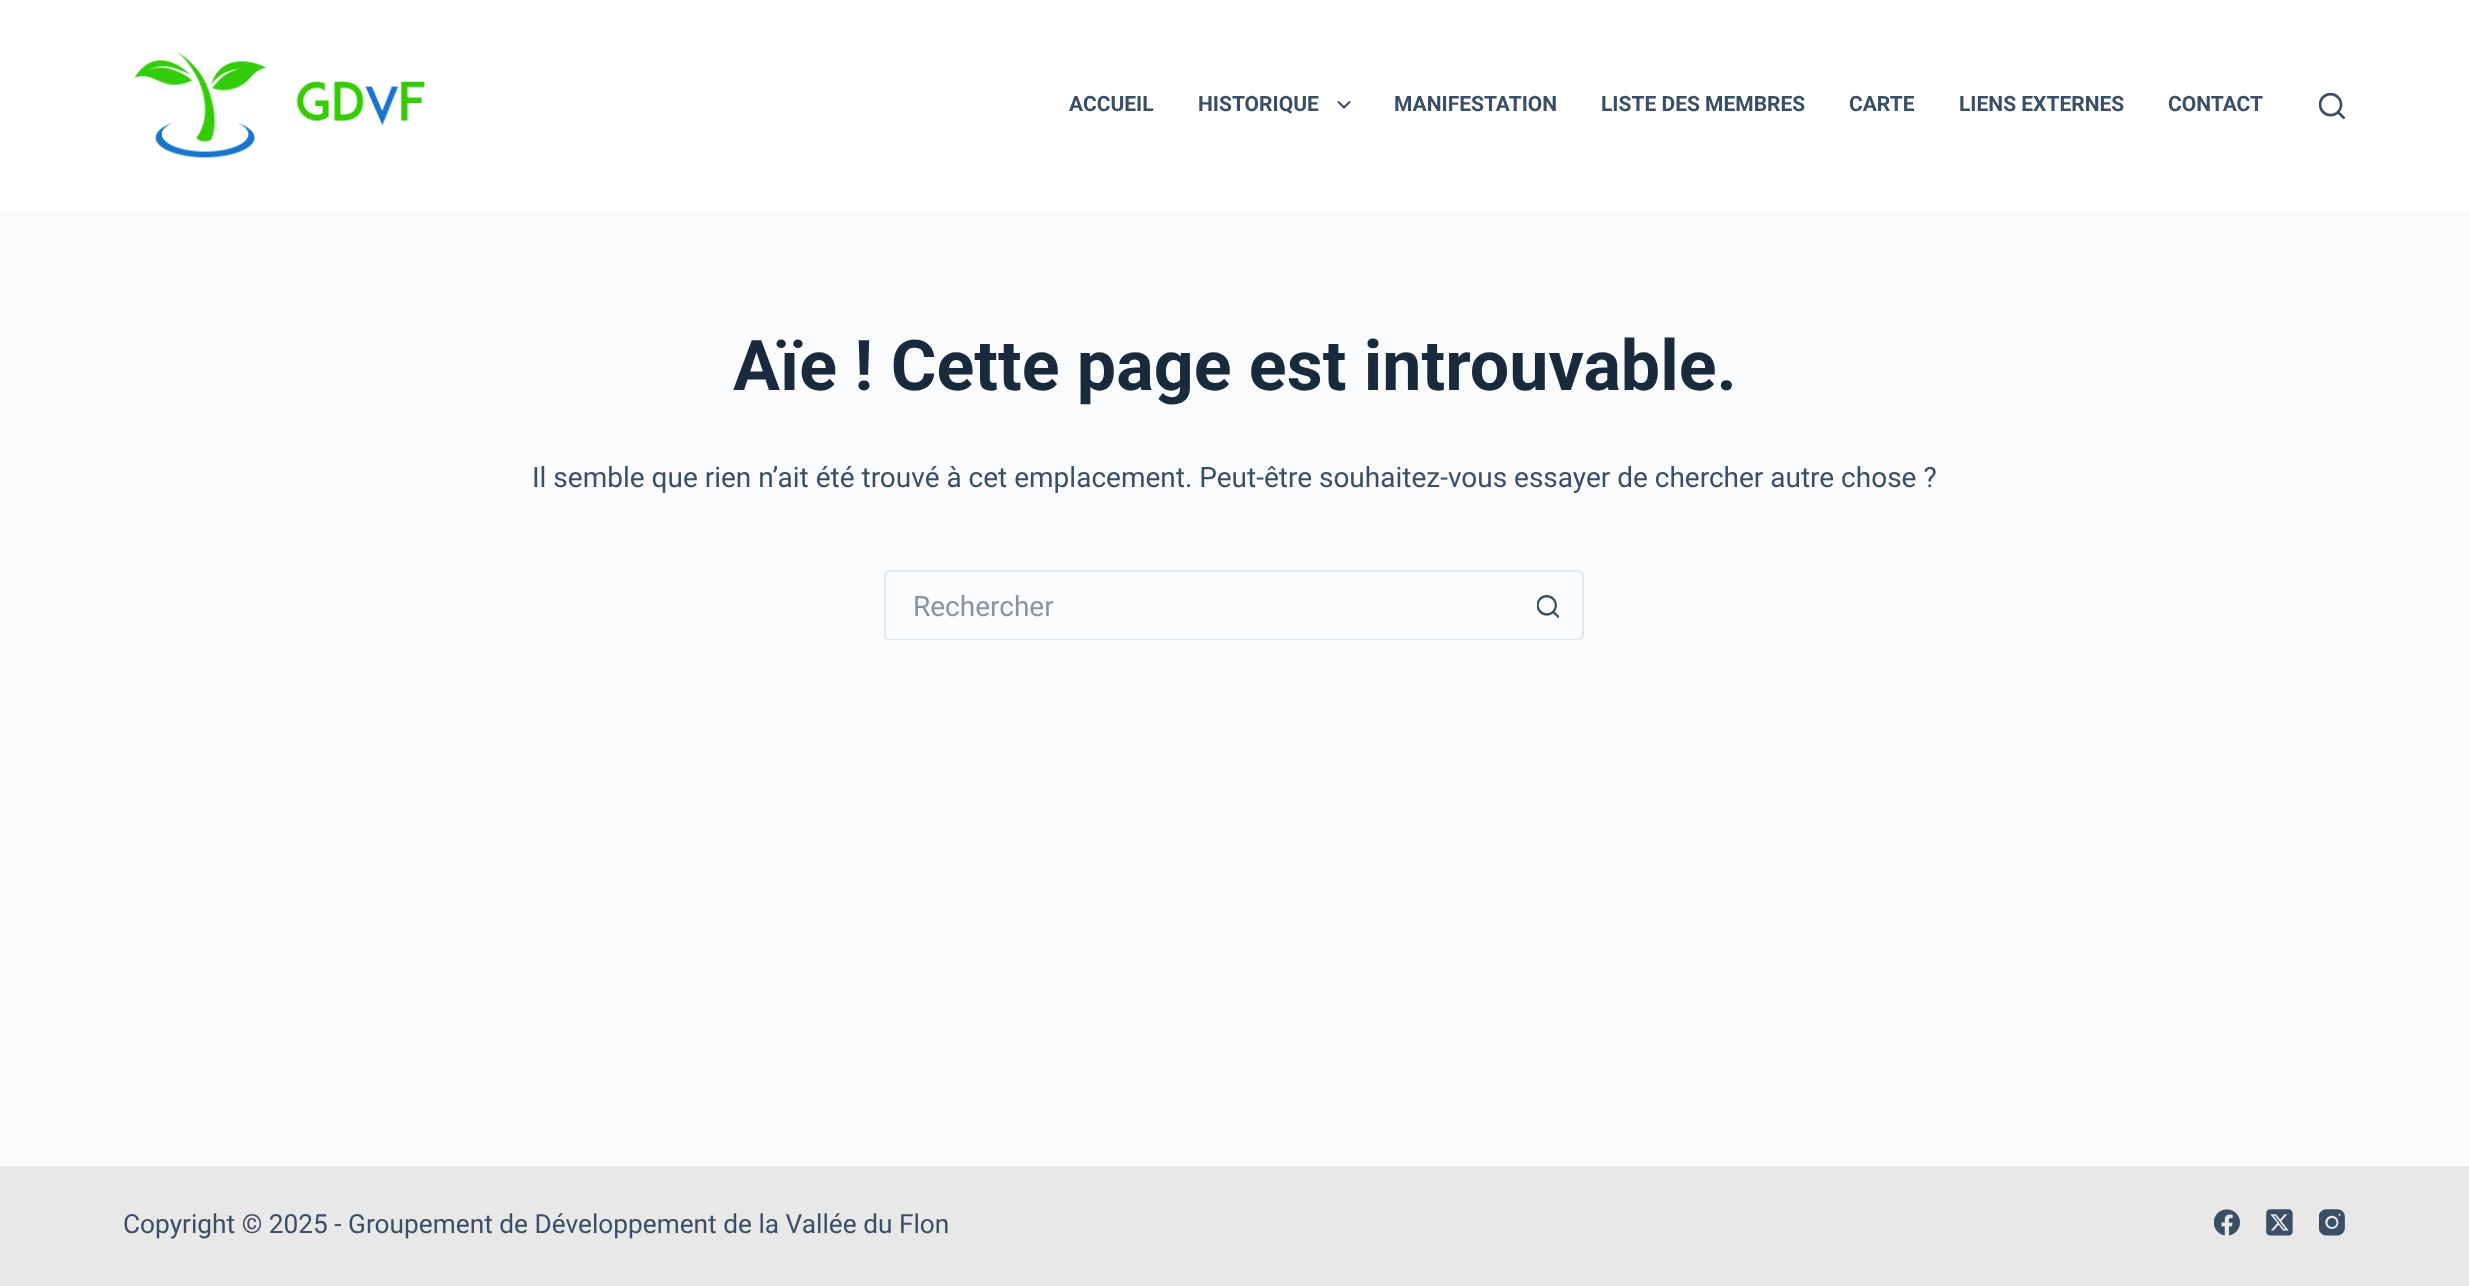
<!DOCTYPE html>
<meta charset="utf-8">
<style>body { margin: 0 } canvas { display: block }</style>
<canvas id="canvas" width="2469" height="1286"></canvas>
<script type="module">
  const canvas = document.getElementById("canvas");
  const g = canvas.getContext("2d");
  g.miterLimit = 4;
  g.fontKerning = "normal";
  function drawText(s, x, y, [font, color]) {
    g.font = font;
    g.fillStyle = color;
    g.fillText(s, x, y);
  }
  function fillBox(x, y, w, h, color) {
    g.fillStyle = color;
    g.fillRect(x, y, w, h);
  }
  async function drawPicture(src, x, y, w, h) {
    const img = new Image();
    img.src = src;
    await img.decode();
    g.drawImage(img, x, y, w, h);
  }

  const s1 = ["bold 21px Roboto", "#3A4F66"];
  const s2 = ["bold 70px Roboto", "#192A3D"];
  const s3 = ["28px Roboto", "#3A4F66"];
  const s4 = ["28px Roboto", "#8794A2"];
  const s5 = ["26.25px Roboto", "#3A4F66"];

  fillBox(0, 0, 2469, 1286, "#FAFBFC");
  fillBox(0, 0, 2469, 210, "#FFFFFF");
  await drawPicture("pic1.png", 134, 52, 291, 106);
  drawText("ACCUEIL", 1069, 111, s1);
  drawText("HISTORIQUE", 1198, 111, s1);
  await drawPicture("pic2.png", 1337, 101, 14, 8);
  drawText("MANIFESTATION", 1394, 111, s1);
  drawText("LISTE DES MEMBRES", 1601, 111, s1);
  drawText("CARTE", 1849, 111, s1);
  drawText("LIENS EXTERNES", 1959, 111, s1);
  drawText("CONTACT", 2168, 111, s1);
  await drawPicture("pic3.png", 2319, 93, 26, 26);
  drawText("Aïe ! Cette page est introuvable.", 733, 390, s2);
  drawText("Il semble que rien n’ait été trouvé à cet emplacement. Peut-être souhaitez-vous essayer de chercher autre chose ?", 532, 487, s3);
  g.fillStyle = "#E1E8ED";
  g.beginPath();
  g.moveTo(889, 570);
  g.lineTo(1514, 570);
  g.lineTo(1514, 640);
  g.lineTo(889, 640);
  g.bezierCurveTo(886, 640, 884, 638, 884, 635);
  g.lineTo(884, 576);
  g.bezierCurveTo(884, 573, 886, 570, 889, 570);
  g.closePath();
  g.moveTo(889, 572);
  g.lineTo(1514, 572);
  g.lineTo(1514, 639);
  g.lineTo(889, 639);
  g.bezierCurveTo(887, 639, 886, 637, 886, 635);
  g.lineTo(886, 576);
  g.bezierCurveTo(886, 574, 887, 572, 889, 572);
  g.closePath();
  g.fill("evenodd");
  drawText("Rechercher", 913, 616, s4);
  g.fillStyle = "#E1E8ED";
  g.beginPath();
  g.moveTo(1514, 570);
  g.lineTo(1578, 570);
  g.bezierCurveTo(1581, 570, 1584, 573, 1584, 576);
  g.lineTo(1584, 635);
  g.bezierCurveTo(1584, 638, 1581, 640, 1578, 640);
  g.lineTo(1514, 640);
  g.closePath();
  g.moveTo(1514, 572);
  g.lineTo(1578, 572);
  g.bezierCurveTo(1580, 572, 1582, 574, 1582, 576);
  g.lineTo(1582, 635);
  g.bezierCurveTo(1582, 637, 1580, 639, 1578, 639);
  g.lineTo(1514, 639);
  g.closePath();
  g.fill("evenodd");
  await drawPicture("pic4.png", 1537, 595, 22, 23);
  fillBox(0, 1166, 2469, 120, "#E8E8E8");
  drawText("Copyright © 2025 - Groupement de Développement de la Vallée du Flon", 123, 1233, s5);
  await drawPicture("pic5.png", 2214, 1209, 26, 27);
  await drawPicture("pic6.png", 2266, 1209, 27, 27);
  await drawPicture("pic7.png", 2319, 1209, 26, 27);
</script>
